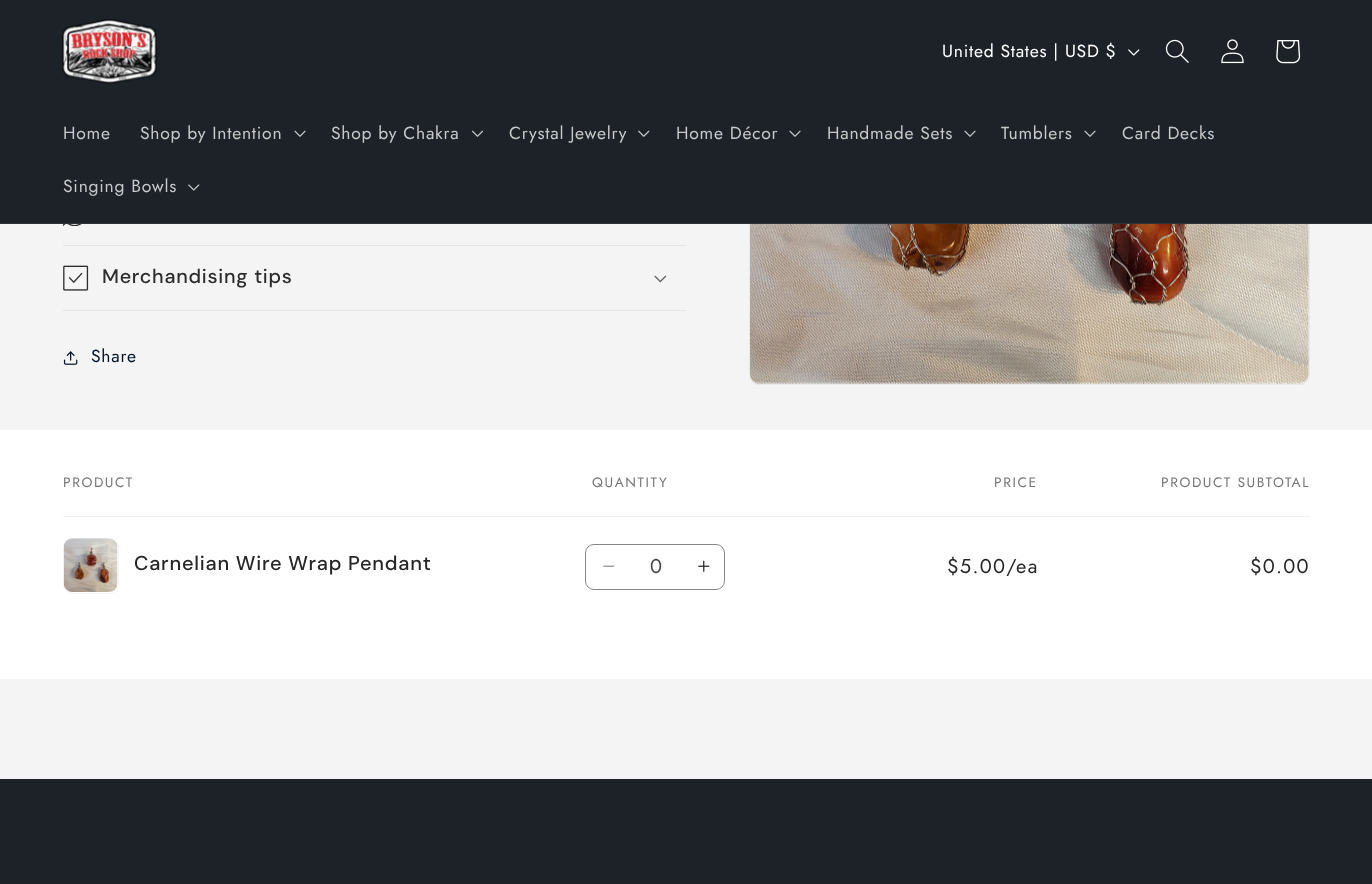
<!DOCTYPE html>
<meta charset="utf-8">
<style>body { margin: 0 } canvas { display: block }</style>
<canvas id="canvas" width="1372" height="884"></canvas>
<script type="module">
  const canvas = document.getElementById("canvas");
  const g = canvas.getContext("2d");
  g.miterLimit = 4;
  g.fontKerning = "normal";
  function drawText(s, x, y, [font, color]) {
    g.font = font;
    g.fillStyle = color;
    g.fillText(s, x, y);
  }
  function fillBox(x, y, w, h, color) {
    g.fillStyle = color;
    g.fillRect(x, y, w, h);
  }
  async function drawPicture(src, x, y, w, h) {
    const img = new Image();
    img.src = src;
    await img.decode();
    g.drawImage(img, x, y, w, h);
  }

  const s1 = ["17.5px Jost", "#FFFFFF"];
  const s2 = ["17.5px Jost", "#C6C8C9"];
  const s3 = ["500 19.75px DM Sans", "#2B2C2D"];
  const s4 = ["17.5px Jost", "#001128"];
  const s5 = ["13.75px Jost", "#757575"];
  const s6 = ["500 20px 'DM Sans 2'", "#262626"];
  const s7 = ["20px Jost", "#474747"];
  const s8 = ["20px Jost", "#262626"];

  fillBox(0, 0, 1372, 884, "#F4F4F4");
  g.beginPath();
  g.roundRect(749.5, -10.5, 560, 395, 9.5);
  g.strokeStyle = "#EAEAEA";
  g.stroke();
  fillBox(0, 0, 1372, 223, "#1C2228");
  fillBox(0, 223, 1372, 1, "#2E3439");
  await drawPicture("pic1.png", 62, 19, 95, 65);
  g.letterSpacing = "0.75px";
  drawText("United States | USD $", 942, 57, s1);
  await drawPicture("pic2.png", 1128, 49, 12, 7);
  await drawPicture("pic3.png", 1165, 39, 24, 24);
  await drawPicture("pic4.png", 1221, 39, 23, 25);
  await drawPicture("pic5.png", 1276, 40, 25, 24);
  drawText("Home", 63, 139, s2);
  drawText("Shop by Intention", 140, 139, s2);
  await drawPicture("pic6.png", 294, 130, 12, 7);
  drawText("Shop by Chakra", 331, 139, s2);
  await drawPicture("pic7.png", 471, 130, 13, 7);
  drawText("Crystal Jewelry", 509, 139, s2);
  await drawPicture("pic8.png", 638, 130, 12, 7);
  drawText("Home Décor", 676, 139, s2);
  await drawPicture("pic6.png", 789, 130, 12, 7);
  drawText("Handmade Sets", 827, 139, s2);
  await drawPicture("pic6.png", 964, 130, 12, 7);
  drawText("Tumblers", 1001, 139, s2);
  await drawPicture("pic6.png", 1084, 130, 12, 7);
  drawText("Card Decks", 1122, 139, s2);
  drawText("Singing Bowls", 63, 192, s2);
  await drawPicture("pic9.png", 188, 184, 12, 7);
  fillBox(63, 245, 623, 1, "#E4E4E4");
  await drawPicture("pic10.png", 63, 224, 19, 2);
  fillBox(63, 310, 623, 1, "#E4E4E4");
  await drawPicture("pic11.png", 63, 265, 26, 26);
  drawText("Merchandising tips", 102, 283, s3);
  await drawPicture("pic12.png", 654, 275, 13, 8);
  await drawPicture("pic13.png", 63, 351, 15, 14);
  drawText("Share", 91, 362, s4);
  await drawPicture("pic14.png", 750, 224, 559, 160);
  fillBox(0, 430, 1372, 249, "#FFFFFF");
  fillBox(63, 516, 1247, 1, "#F0F0F0");
  g.letterSpacing = "1.6px";
  drawText("PRODUCT", 63, 487, s5);
  drawText("QUANTITY", 592, 487, s5);
  drawText("PRICE", 994, 487, s5);
  drawText("PRODUCT SUBTOTAL", 1161, 487, s5);
  g.beginPath();
  g.roundRect(63.5, 538.5, 55, 55, 9.5);
  g.strokeStyle = "#F4F4F4";
  g.stroke();
  await drawPicture("pic15.png", 63, 538, 55, 54);
  g.letterSpacing = "0.75px";
  drawText("Carnelian Wire Wrap Pendant", 134, 570, s6);
  await drawPicture("pic16.png", 603, 565, 12, 2);
  await drawPicture("pic17.png", 698, 560, 12, 12);
  g.beginPath();
  g.roundRect(585.5, 544.5, 139, 45, 8.5);
  g.strokeStyle = "#888888";
  g.stroke();
  g.letterSpacing = "0px";
  drawText("0", 650, 573, s7);
  g.letterSpacing = "1.25px";
  drawText("$5.00/ea", 947, 573, s8);
  drawText("$0.00", 1250, 573, s8);
  fillBox(0, 779, 1372, 105, "#1C2228");
</script>
